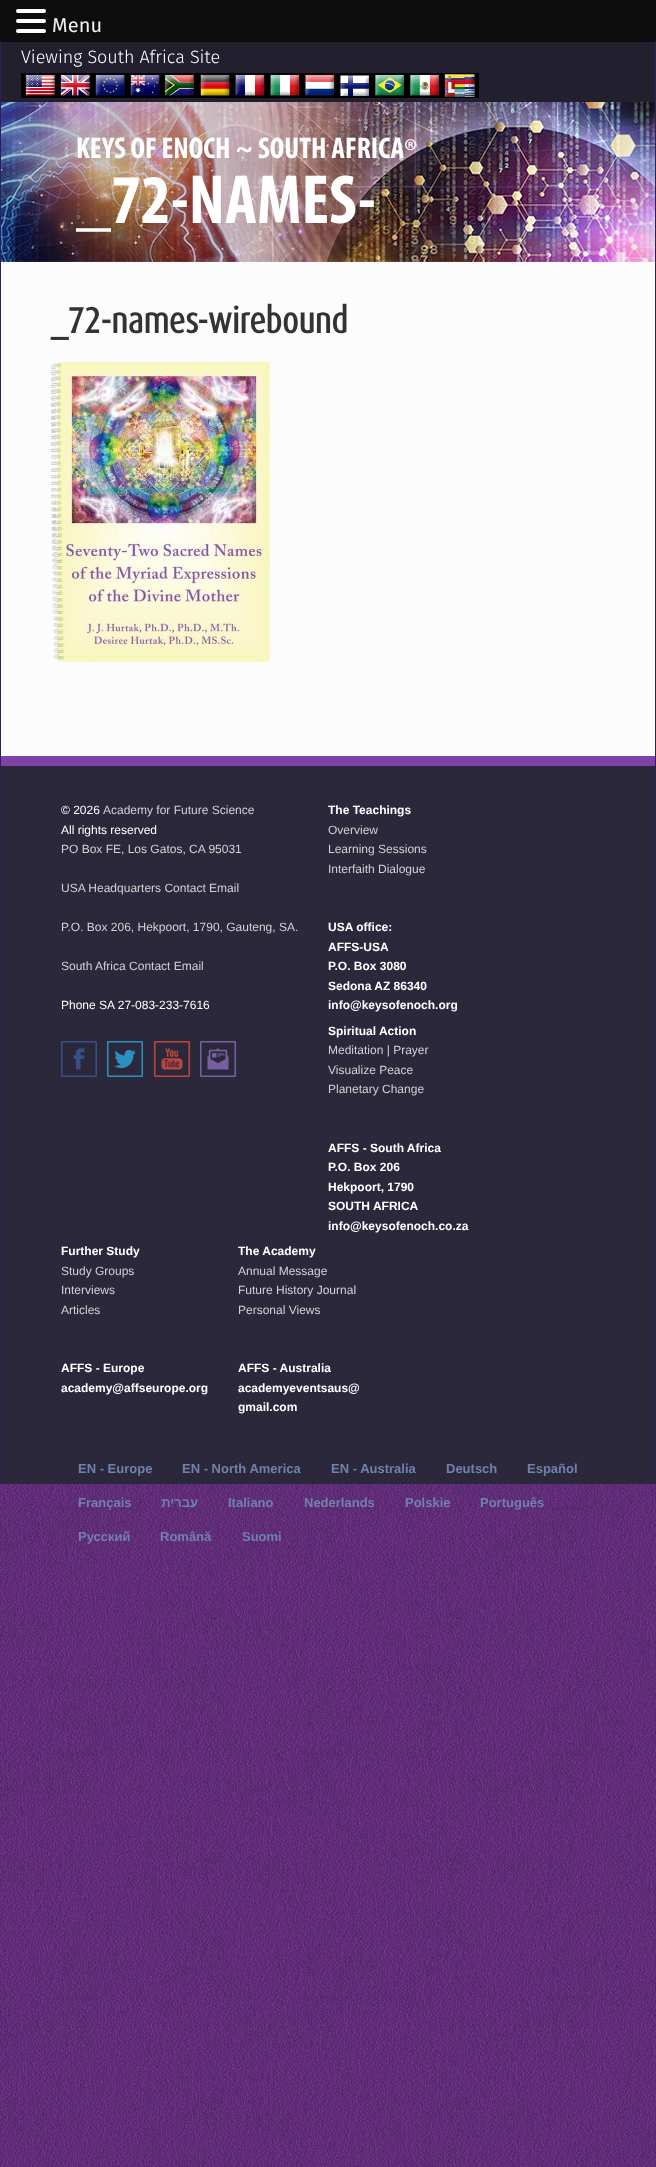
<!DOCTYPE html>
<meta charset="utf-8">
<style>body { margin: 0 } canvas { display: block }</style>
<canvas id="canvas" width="656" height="2167"></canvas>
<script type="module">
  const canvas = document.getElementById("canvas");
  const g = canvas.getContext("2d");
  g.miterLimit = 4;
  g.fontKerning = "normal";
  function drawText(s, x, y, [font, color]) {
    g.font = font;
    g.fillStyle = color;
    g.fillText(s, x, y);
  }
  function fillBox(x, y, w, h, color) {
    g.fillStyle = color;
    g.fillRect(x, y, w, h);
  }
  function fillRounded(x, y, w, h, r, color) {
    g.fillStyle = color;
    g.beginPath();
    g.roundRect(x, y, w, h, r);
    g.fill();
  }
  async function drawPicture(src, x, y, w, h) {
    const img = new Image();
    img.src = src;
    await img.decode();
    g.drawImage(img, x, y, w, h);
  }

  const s1 = ["20px Fira Sans", "#F2F2F2"];
  const s2 = ["300 18px Fira Sans", "#FFFFFF"];
  const s3 = ["bold 30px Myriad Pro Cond", "#FFFFFF"];
  const s4 = ["35px Myriad Pro Cond", "#FFFFFF"];
  const s5 = ["bold 70px Myriad Pro Cond", "#FFFFFF"];
  const s6 = ["bold 36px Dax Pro", "#333333"];
  const s7 = ["12px Liberation Sans", "#FFFFFF"];
  const s8 = ["12px Liberation Sans", "#D2D2D4"];
  const s9 = ["bold 12px Liberation Sans", "#FFFFFF"];
  const s10 = ["bold 13px Liberation Sans", "#7082AC"];

  fillBox(0, 0, 656, 2167, "#FFFFFF");
  await drawPicture("pic1.png", 0, 1484, 656, 683);
  fillBox(0, 0, 656, 42, "#0D0D0D");
  fillRounded(16, 9, 30, 4, 2, "#FFFFFF");
  fillRounded(16, 19, 30, 4, 2, "#FFFFFF");
  fillRounded(16, 29, 30, 4, 2, "#FFFFFF");
  drawText("Menu", 52, 32, s1);
  fillBox(655, 42, 1, 1442, "#2E1F57");
  fillBox(0, 42, 1, 1442, "#2E1F57");
  await drawPicture("pic2.png", 1, 102, 654, 160);
  fillBox(1, 42, 654, 60, "#22202E");
  drawText("Viewing South Africa Site", 21, 63, s2);
  await drawPicture("pic3.png", 21, 73, 458, 25);
  drawText("KEYS OF ENOCH ~ SOUTH AFRICA", 76, 158, s3);
  drawText("®", 404, 163, s4);
  drawText("_72-NAMES-", 76, 223, s5);
  fillBox(1, 262, 654, 494, "#FBFCFB");
  drawText("_72-names-wirebound", 51, 333, s6);
  await drawPicture("pic4.png", 51, 362, 219, 300);
  fillBox(1, 766, 654, 718, "#2B283B");
  fillBox(1, 756, 654, 10, "#7F43A8");
  drawText("© 2026", 61, 814, s7);
  drawText("Academy for Future Science", 103, 814, s8);
  drawText("All rights reserved", 61, 834, s7);
  drawText("PO Box FE, Los Gatos, CA 95031", 61, 853, s8);
  drawText("USA Headquarters Contact Email", 61, 892, s8);
  drawText("P.O. Box 206, Hekpoort, 1790, Gauteng, SA.", 61, 931, s8);
  drawText("South Africa Contact Email", 61, 970, s8);
  drawText("Phone SA 27-083-233-7616", 61, 1009, s7);
  await drawPicture("pic5.png", 61, 1041, 36, 36);
  await drawPicture("pic6.png", 107, 1041, 36, 36);
  await drawPicture("pic7.png", 154, 1041, 36, 36);
  await drawPicture("pic8.png", 200, 1041, 36, 36);
  drawText("The Teachings", 328, 814, s9);
  drawText("Overview", 328, 834, s8);
  drawText("Learning Sessions", 328, 853, s8);
  drawText("Interfaith Dialogue", 328, 873, s8);
  drawText("USA office:", 328, 931, s9);
  drawText("AFFS-USA", 328, 951, s9);
  drawText("P.O. Box 3080", 328, 970, s9);
  drawText("Sedona AZ 86340", 328, 990, s9);
  drawText("info@keysofenoch.org", 328, 1009, s9);
  drawText("Spiritual Action", 328, 1035, s9);
  drawText("Meditation | Prayer", 328, 1054, s8);
  drawText("Visualize Peace", 328, 1074, s8);
  drawText("Planetary Change", 328, 1093, s8);
  drawText("AFFS - South Africa", 328, 1152, s9);
  drawText("P.O. Box 206", 328, 1171, s9);
  drawText("Hekpoort, 1790", 328, 1191, s9);
  drawText("SOUTH AFRICA", 328, 1210, s9);
  drawText("info@keysofenoch.co.za", 328, 1230, s9);
  drawText("Further Study", 61, 1255, s9);
  drawText("Study Groups", 61, 1275, s8);
  drawText("Interviews", 61, 1294, s8);
  drawText("Articles", 61, 1314, s8);
  drawText("AFFS - Europe", 61, 1372, s9);
  drawText("academy@affseurope.org", 61, 1392, s9);
  drawText("The Academy", 238, 1255, s9);
  drawText("Annual Message", 238, 1275, s8);
  drawText("Future History Journal", 238, 1294, s8);
  drawText("Personal Views", 238, 1314, s8);
  drawText("AFFS - Australia", 238, 1372, s9);
  drawText("academyeventsaus@", 238, 1392, s9);
  drawText("gmail.com", 238, 1411, s9);
  drawText("EN - Europe", 78, 1473, s10);
  drawText("EN - North America", 182, 1473, s10);
  drawText("EN - Australia", 331, 1473, s10);
  drawText("Deutsch", 446, 1473, s10);
  drawText("Español", 527, 1473, s10);
  drawText("Français", 78, 1507, s10);
  g.direction = "rtl";
  drawText("עברית", 198, 1507, s10);
  g.direction = "ltr";
  drawText("Italiano", 228, 1507, s10);
  drawText("Nederlands", 304, 1507, s10);
  drawText("Polskie", 405, 1507, s10);
  drawText("Português", 480, 1507, s10);
  drawText("Русский", 78, 1541, s10);
  drawText("Română", 160, 1541, s10);
  drawText("Suomi", 242, 1541, s10);
</script>
